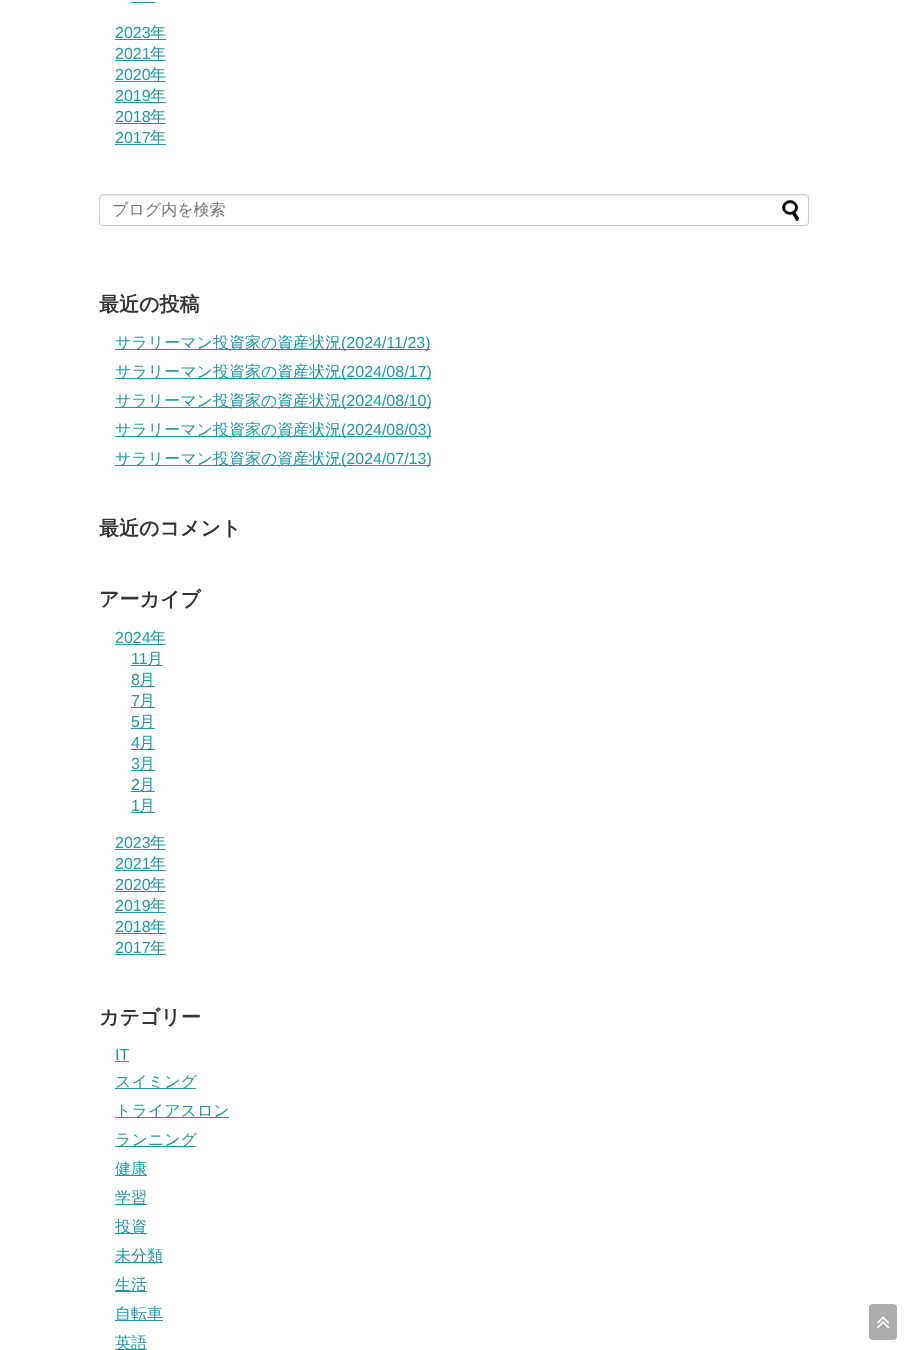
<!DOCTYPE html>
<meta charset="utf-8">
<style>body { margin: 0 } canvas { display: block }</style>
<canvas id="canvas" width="907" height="1350"></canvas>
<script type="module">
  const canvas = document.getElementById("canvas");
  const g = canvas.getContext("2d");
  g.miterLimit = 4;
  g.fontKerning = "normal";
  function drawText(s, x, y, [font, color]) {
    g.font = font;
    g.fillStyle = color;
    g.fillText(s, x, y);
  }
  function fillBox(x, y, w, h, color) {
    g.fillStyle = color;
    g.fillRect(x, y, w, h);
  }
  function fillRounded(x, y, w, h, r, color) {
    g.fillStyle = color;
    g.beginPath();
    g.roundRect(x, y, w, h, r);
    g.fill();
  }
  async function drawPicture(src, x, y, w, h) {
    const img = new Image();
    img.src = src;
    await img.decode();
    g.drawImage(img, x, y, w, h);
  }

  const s1 = ["16px Liberation Sans", "#2098A8"];
  const s2 = ["500 16px WenQuanYi Zen Hei", "#2098A8"];
  const s3 = ["500 16px WenQuanYi Zen Hei", "#757575"];
  const s4 = ["bold 20px WenQuanYi Zen Hei", "#333333"];

  fillBox(0, 0, 907, 1350, "#FFFFFF");
  fillBox(131, 2, 24, 1, "#2098A8");
  drawText("2023", 115, 38, s1);
  fillBox(115, 39, 51, 1, "#2098A8");
  drawText("年", 150, 38, s2);
  drawText("2021", 115, 59, s1);
  fillBox(115, 60, 51, 1, "#2098A8");
  drawText("年", 150, 59, s2);
  drawText("2020", 115, 80, s1);
  fillBox(115, 81, 51, 1, "#2098A8");
  drawText("年", 150, 80, s2);
  drawText("2019", 115, 101, s1);
  fillBox(115, 102, 51, 1, "#2098A8");
  drawText("年", 150, 101, s2);
  drawText("2018", 115, 122, s1);
  fillBox(115, 123, 51, 1, "#2098A8");
  drawText("年", 150, 122, s2);
  drawText("2017", 115, 143, s1);
  fillBox(115, 144, 51, 1, "#2098A8");
  drawText("年", 150, 143, s2);
  g.fillStyle = "#ECECEC";
  g.beginPath();
  g.moveTo(103, 196);
  g.lineTo(805, 196);
  g.bezierCurveTo(807, 196, 808, 197, 808, 199);
  g.bezierCurveTo(808, 197, 807, 195, 805, 195);
  g.lineTo(103, 195);
  g.bezierCurveTo(101, 195, 100, 197, 100, 199);
  g.bezierCurveTo(100, 197, 101, 196, 103, 196);
  g.closePath();
  g.fill();
  g.beginPath();
  g.roundRect(99.5, 194.5, 709, 31, 3.5);
  g.strokeStyle = "#CCCCCC";
  g.stroke();
  drawText("ブログ内を検索", 112, 215, s3);
  await drawPicture("pic1.png", 782, 200, 17, 21);
  drawText("最近の投稿", 99, 311, s4);
  fillBox(115, 349, 315, 1, "#2098A8");
  drawText("サラリーマン投資家の資産状況", 115, 348, s2);
  drawText("(2024/11/23)", 341, 348, s1);
  fillBox(115, 378, 316, 1, "#2098A8");
  drawText("サラリーマン投資家の資産状況", 115, 377, s2);
  drawText("(2024/08/17)", 341, 377, s1);
  fillBox(115, 407, 316, 1, "#2098A8");
  drawText("サラリーマン投資家の資産状況", 115, 406, s2);
  drawText("(2024/08/10)", 341, 406, s1);
  fillBox(115, 436, 316, 1, "#2098A8");
  drawText("サラリーマン投資家の資産状況", 115, 435, s2);
  drawText("(2024/08/03)", 341, 435, s1);
  fillBox(115, 465, 316, 1, "#2098A8");
  drawText("サラリーマン投資家の資産状況", 115, 464, s2);
  drawText("(2024/07/13)", 341, 464, s1);
  drawText("最近のコメント", 99, 535, s4);
  drawText("アーカイブ", 99, 606, s4);
  drawText("2024", 115, 643, s1);
  fillBox(115, 644, 51, 1, "#2098A8");
  drawText("年", 150, 643, s2);
  drawText("11", 131, 664, s1);
  fillBox(131, 665, 32, 1, "#2098A8");
  drawText("月", 147, 664, s2);
  drawText("8", 131, 685, s1);
  fillBox(131, 686, 24, 1, "#2098A8");
  drawText("月", 139, 685, s2);
  drawText("7", 131, 706, s1);
  fillBox(131, 707, 24, 1, "#2098A8");
  drawText("月", 139, 706, s2);
  drawText("5", 131, 727, s1);
  fillBox(131, 728, 24, 1, "#2098A8");
  drawText("月", 139, 727, s2);
  drawText("4", 131, 748, s1);
  fillBox(131, 749, 24, 1, "#2098A8");
  drawText("月", 139, 748, s2);
  drawText("3", 131, 769, s1);
  fillBox(131, 770, 24, 1, "#2098A8");
  drawText("月", 139, 769, s2);
  drawText("2", 131, 790, s1);
  fillBox(131, 791, 24, 1, "#2098A8");
  drawText("月", 139, 790, s2);
  drawText("1", 131, 811, s1);
  fillBox(131, 812, 24, 1, "#2098A8");
  drawText("月", 139, 811, s2);
  drawText("2023", 115, 848, s1);
  fillBox(115, 849, 51, 1, "#2098A8");
  drawText("年", 150, 848, s2);
  drawText("2021", 115, 869, s1);
  fillBox(115, 870, 51, 1, "#2098A8");
  drawText("年", 150, 869, s2);
  drawText("2020", 115, 890, s1);
  fillBox(115, 891, 51, 1, "#2098A8");
  drawText("年", 150, 890, s2);
  drawText("2019", 115, 911, s1);
  fillBox(115, 912, 51, 1, "#2098A8");
  drawText("年", 150, 911, s2);
  drawText("2018", 115, 932, s1);
  fillBox(115, 933, 51, 1, "#2098A8");
  drawText("年", 150, 932, s2);
  drawText("2017", 115, 953, s1);
  fillBox(115, 954, 51, 1, "#2098A8");
  drawText("年", 150, 953, s2);
  drawText("カテゴリー", 99, 1024, s4);
  drawText("IT", 115, 1060, s1);
  fillBox(115, 1061, 14, 1, "#2098A8");
  fillBox(115, 1088, 81, 1, "#2098A8");
  drawText("スイミング", 115, 1087, s2);
  fillBox(115, 1117, 114, 1, "#2098A8");
  drawText("トライアスロン", 115, 1116, s2);
  fillBox(115, 1146, 81, 1, "#2098A8");
  drawText("ランニング", 115, 1145, s2);
  fillBox(115, 1175, 32, 1, "#2098A8");
  drawText("健康", 115, 1174, s2);
  fillBox(115, 1204, 32, 1, "#2098A8");
  drawText("学習", 115, 1203, s2);
  fillBox(115, 1233, 32, 1, "#2098A8");
  drawText("投資", 115, 1232, s2);
  fillBox(115, 1262, 48, 1, "#2098A8");
  drawText("未分類", 115, 1261, s2);
  fillBox(115, 1291, 32, 1, "#2098A8");
  drawText("生活", 115, 1290, s2);
  fillBox(115, 1320, 48, 1, "#2098A8");
  drawText("自転車", 115, 1319, s2);
  fillBox(115, 1349, 32, 1, "#2098A8");
  drawText("英語", 115, 1348, s2);
  fillRounded(869, 1304, 28, 36, 4, "#ADADAD");
  await drawPicture("pic2.png", 877, 1316, 13, 13);
</script>
